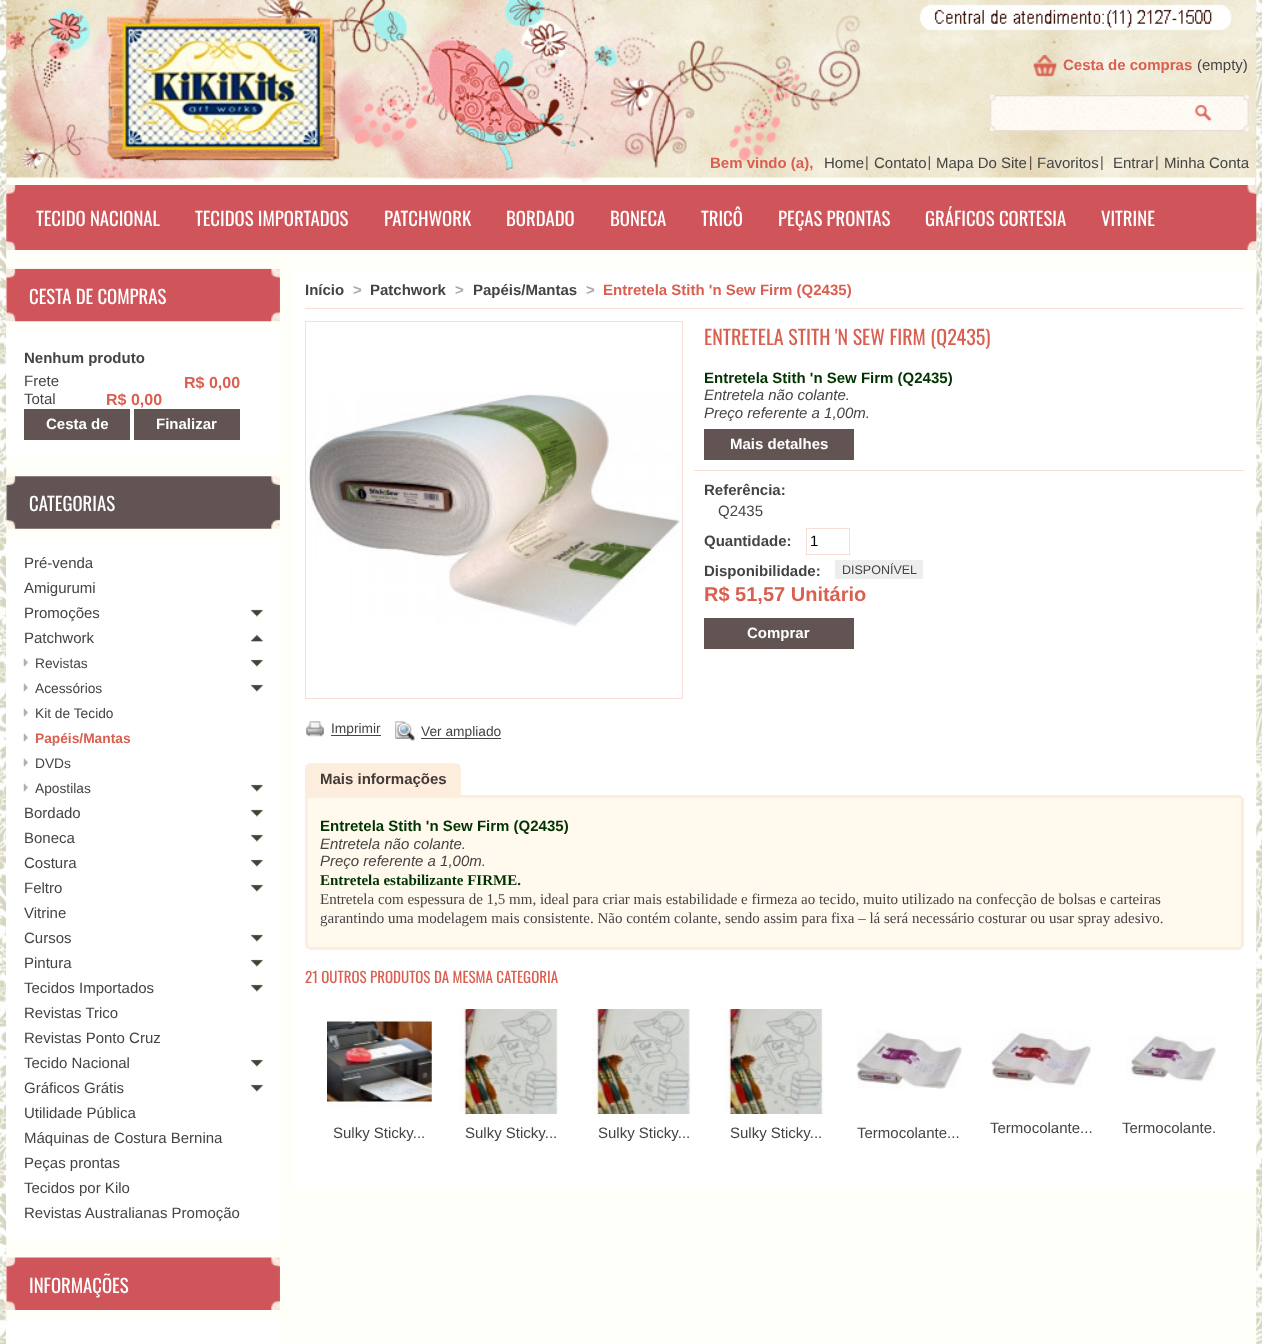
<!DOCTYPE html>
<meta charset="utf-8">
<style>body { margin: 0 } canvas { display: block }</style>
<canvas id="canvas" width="1262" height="1344"></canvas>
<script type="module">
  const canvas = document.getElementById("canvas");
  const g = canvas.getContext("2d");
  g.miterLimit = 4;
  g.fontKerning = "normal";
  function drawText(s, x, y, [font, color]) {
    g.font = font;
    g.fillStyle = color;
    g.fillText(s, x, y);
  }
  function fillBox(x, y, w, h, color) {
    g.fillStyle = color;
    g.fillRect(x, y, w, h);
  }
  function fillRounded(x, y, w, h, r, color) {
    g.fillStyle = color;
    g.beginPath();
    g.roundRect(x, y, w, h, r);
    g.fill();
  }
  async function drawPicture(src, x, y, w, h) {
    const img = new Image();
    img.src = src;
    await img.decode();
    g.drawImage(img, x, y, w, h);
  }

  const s1 = ["bold 15px Liberation Sans", "#D95F50"];
  const s2 = ["15px Liberation Sans", "#444444"];
  const s3 = ["18.75px Oswald", "#FFFFFF"];
  const s4 = ["bold 15px Liberation Sans", "#444444"];
  const s5 = ["bold 16px Liberation Sans", "#D95F50"];
  const s6 = ["bold 15px Liberation Sans", "#FFFFFF"];
  const s7 = ["13.75px Liberation Sans", "#444444"];
  const s8 = ["bold 13.75px Liberation Sans", "#D95F50"];
  const s9 = ["bold 15px Liberation Sans", "#AAAAAA"];
  const s10 = ["20px Oswald", "#D95F50"];
  const s11 = ["bold 15px Liberation Sans", "#003300"];
  const s12 = ["italic 15px Liberation Sans", "#444444"];
  const s13 = ["15px Liberation Sans", "#000000"];
  const s14 = ["12.5px Liberation Sans", "#444444"];
  const s15 = ["bold 20px Liberation Sans", "#D95F50"];
  const s16 = ["bold 15px Liberation Sans", "#443937"];
  const s17 = ["bold 15px Liberation Serif", "#003300"];
  const s18 = ["15px Liberation Serif", "#444444"];
  const s19 = ["15px Oswald", "#D95F50"];

  fillBox(0, 0, 1262, 1344, "#FFFFFF");
  await drawPicture("pic1.png", 0, 0, 1262, 1344);
  await drawPicture("pic2.png", 6, 0, 1251, 1344);
  await drawPicture("pic3.png", 18, 38, 341, 91);
  await drawPicture("pic4.png", 1033, 55, 24, 22);
  drawText("Cesta de compras", 1063, 70, s1);
  drawText("(empty)", 1197, 70, s2);
  await drawPicture("pic5.png", 990, 95, 259, 37);
  await drawPicture("pic6.png", 1195, 105, 17, 17);
  drawText("Bem vindo (a),", 710, 168, s1);
  drawText("Home", 824, 168, s2);
  await drawPicture("pic7.png", 866, 156, 2, 14);
  drawText("Contato", 874, 168, s2);
  await drawPicture("pic8.png", 928, 156, 2, 14);
  drawText("Mapa Do Site", 936, 168, s2);
  await drawPicture("pic9.png", 1030, 156, 2, 14);
  drawText("Favoritos", 1037, 168, s2);
  await drawPicture("pic10.png", 1101, 156, 2, 14);
  drawText("Entrar", 1113, 168, s2);
  await drawPicture("pic11.png", 1156, 156, 2, 14);
  drawText("Minha Conta", 1164, 168, s2);
  await drawPicture("pic12.png", 6, 185, 1251, 65);
  drawText("TECIDO NACIONAL", 36, 226, s3);
  drawText("TECIDOS IMPORTADOS", 195, 226, s3);
  drawText("PATCHWORK", 384, 226, s3);
  drawText("BORDADO", 506, 226, s3);
  drawText("BONECA", 610, 226, s3);
  drawText("TRICÔ", 701, 226, s3);
  drawText("PEÇAS PRONTAS", 778, 226, s3);
  drawText("GRÁFICOS CORTESIA", 925, 226, s3);
  drawText("VITRINE", 1101, 226, s3);
  await drawPicture("pic13.png", 6, 268, 274, 54);
  drawText("CESTA DE COMPRAS", 29, 304, s3);
  fillRounded(6, 330, 274, 128, 6, "#FFFFFF");
  drawText("Nenhum produto", 24, 363, s4);
  drawText("Frete", 24, 386, s2);
  drawText("R$ 0,00", 184, 388, s5);
  drawText("Total", 24, 404, s2);
  drawText("R$ 0,00", 106, 405, s5);
  fillBox(24, 409, 106, 31, "#625452");
  drawText("Cesta de", 46, 429, s6);
  fillBox(134, 409, 106, 31, "#625452");
  drawText("Finalizar", 156, 429, s6);
  await drawPicture("pic14.png", 6, 476, 274, 53);
  drawText("CATEGORIAS", 29, 511, s3);
  fillRounded(6, 538, 274, 701, 6, "#FFFFFF");
  drawText("Pré-venda", 24, 568, s2);
  drawText("Amigurumi", 24, 593, s2);
  drawText("Promoções", 24, 618, s2);
  await drawPicture("pic15.png", 251, 609, 12, 8);
  drawText("Patchwork", 24, 643, s2);
  await drawPicture("pic16.png", 251, 634, 12, 8);
  await drawPicture("pic17.png", 23, 658, 5, 9);
  drawText("Revistas", 35, 668, s7);
  await drawPicture("pic15.png", 251, 659, 12, 8);
  await drawPicture("pic17.png", 23, 683, 5, 9);
  drawText("Acessórios", 35, 693, s7);
  await drawPicture("pic15.png", 251, 684, 12, 8);
  await drawPicture("pic17.png", 23, 708, 5, 9);
  drawText("Kit de Tecido", 35, 718, s7);
  await drawPicture("pic17.png", 23, 733, 5, 9);
  drawText("Papéis/Mantas", 35, 743, s8);
  await drawPicture("pic17.png", 23, 758, 5, 9);
  drawText("DVDs", 35, 768, s7);
  await drawPicture("pic17.png", 23, 783, 5, 9);
  drawText("Apostilas", 35, 793, s7);
  await drawPicture("pic15.png", 251, 784, 12, 8);
  drawText("Bordado", 24, 818, s2);
  await drawPicture("pic15.png", 251, 809, 12, 8);
  drawText("Boneca", 24, 843, s2);
  await drawPicture("pic15.png", 251, 834, 12, 8);
  drawText("Costura", 24, 868, s2);
  await drawPicture("pic15.png", 251, 859, 12, 8);
  drawText("Feltro", 24, 893, s2);
  await drawPicture("pic15.png", 251, 884, 12, 8);
  drawText("Vitrine", 24, 918, s2);
  drawText("Cursos", 24, 943, s2);
  await drawPicture("pic15.png", 251, 934, 12, 8);
  drawText("Pintura", 24, 968, s2);
  await drawPicture("pic15.png", 251, 959, 12, 8);
  drawText("Tecidos Importados", 24, 993, s2);
  await drawPicture("pic15.png", 251, 984, 12, 8);
  drawText("Revistas Trico", 24, 1018, s2);
  drawText("Revistas Ponto Cruz", 24, 1043, s2);
  drawText("Tecido Nacional", 24, 1068, s2);
  await drawPicture("pic15.png", 251, 1059, 12, 8);
  drawText("Gráficos Grátis", 24, 1093, s2);
  await drawPicture("pic15.png", 251, 1084, 12, 8);
  drawText("Utilidade Pública", 24, 1118, s2);
  drawText("Máquinas de Costura Bernina", 24, 1143, s2);
  drawText("Peças prontas", 24, 1168, s2);
  drawText("Tecidos por Kilo", 24, 1193, s2);
  drawText("Revistas Australianas Promoção", 24, 1218, s2);
  await drawPicture("pic18.png", 6, 1257, 274, 53);
  drawText("INFORMAÇÕES", 29, 1293, s3);
  fillRounded(6, 1319, 274, 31, 6, "#FFFFFF");
  fillRounded(293, 269, 963, 920, 6, "#FFFFFF");
  fillBox(305, 308, 939, 1, "#F6DFD7");
  drawText("Início", 305, 295, s4);
  drawText(">", 353, 295, s9);
  drawText("Patchwork", 370, 295, s4);
  drawText(">", 455, 295, s9);
  drawText("Papéis/Mantas", 473, 295, s4);
  drawText(">", 586, 295, s9);
  drawText("Entretela Stith 'n Sew Firm (Q2435)", 603, 295, s1);
  drawText("ENTRETELA STITH 'N SEW FIRM (Q2435)", 704, 345, s10);
  fillBox(694, 470, 550, 1, "#F6DFD7");
  drawText("Entretela Stith 'n Sew Firm (Q2435)", 704, 383, s11);
  drawText("Entretela não colante.", 704, 400, s12);
  drawText("Preço referente a 1,00m.", 704, 418, s12);
  fillBox(704, 429, 150, 31, "#625452");
  drawText("Mais detalhes", 730, 449, s6);
  drawText("Referência:", 704, 495, s4);
  drawText("Q2435", 718, 516, s2);
  drawText("Quantidade:", 704, 546, s4);
  g.strokeStyle = "#F6DFD7";
  g.strokeRect(806.5, 528.5, 43, 26);
  drawText("1", 810, 546, s13);
  drawText("Disponibilidade:", 704, 576, s4);
  fillBox(835, 560, 88, 19, "#EEEEEE");
  drawText("DISPONÍVEL", 842, 574, s14);
  drawText("R$ 51,57 Unitário", 704, 601, s15);
  fillBox(704, 618, 150, 31, "#625452");
  drawText("Comprar", 747, 638, s6);
  g.strokeRect(305.5, 321.5, 377, 377);
  await drawPicture("pic19.png", 306, 394, 375, 233);
  await drawPicture("pic20.png", 306, 721, 18, 16);
  fillBox(331, 735, 50, 1, "#444444");
  drawText("Imprimir", 331, 733, s7);
  await drawPicture("pic21.png", 395, 721, 20, 21);
  fillBox(421, 738, 80, 1, "#444444");
  drawText("Ver ampliado", 421, 736, s7);
  g.fillStyle = "#FDEDDD";
  g.beginPath();
  g.roundRect(305, 763, 156, 32, [6, 6, 0, 0]);
  g.fill();
  drawText("Mais informações", 320, 784, s16);
  g.fillStyle = "#FFF9EE";
  g.beginPath();
  g.roundRect(306.5, 796.5, 936, 152, [0, 4.5, 4.5, 4.5]);
  g.fill();
  g.strokeStyle = "#FDEDDD";
  g.lineWidth = 3;
  g.stroke();
  drawText("Entretela Stith 'n Sew Firm (Q2435)", 320, 831, s11);
  drawText("Entretela não colante.", 320, 849, s12);
  drawText("Preço referente a 1,00m.", 320, 866, s12);
  drawText("Entretela estabilizante FIRME.", 320, 885, s17);
  drawText("Entretela com espessura de 1,5 mm, ideal para criar mais estabilidade e firmeza ao tecido, muito utilizado na confecção de bolsas e carteiras", 320, 904, s18);
  drawText("garantindo uma modelagem mais consistente. Não contém colante, sendo assim para fixa – lá será necessário costurar ou usar spray adesivo.", 320, 923, s18);
  drawText("21 OUTROS PRODUTOS DA MESMA CATEGORIA", 305, 983, s19);
  await drawPicture("pic22.png", 327, 1009, 105, 100);
  drawText("Sulky Sticky...", 333, 1138, s2);
  await drawPicture("pic23.png", 459, 1009, 100, 105);
  drawText("Sulky Sticky...", 465, 1138, s2);
  await drawPicture("pic24.png", 592, 1009, 100, 105);
  drawText("Sulky Sticky...", 598, 1138, s2);
  await drawPicture("pic23.png", 724, 1009, 100, 105);
  drawText("Sulky Sticky...", 730, 1138, s2);
  await drawPicture("pic25.png", 856, 1030, 106, 59);
  drawText("Termocolante...", 857, 1138, s2);
  await drawPicture("pic26.png", 991, 1029, 100, 60);
  drawText("Termocolante...", 990, 1133, s2);
  await drawPicture("pic27.png", 1126, 1032, 90, 50);
  drawText("Termocolante.", 1122, 1133, s2);
</script>
